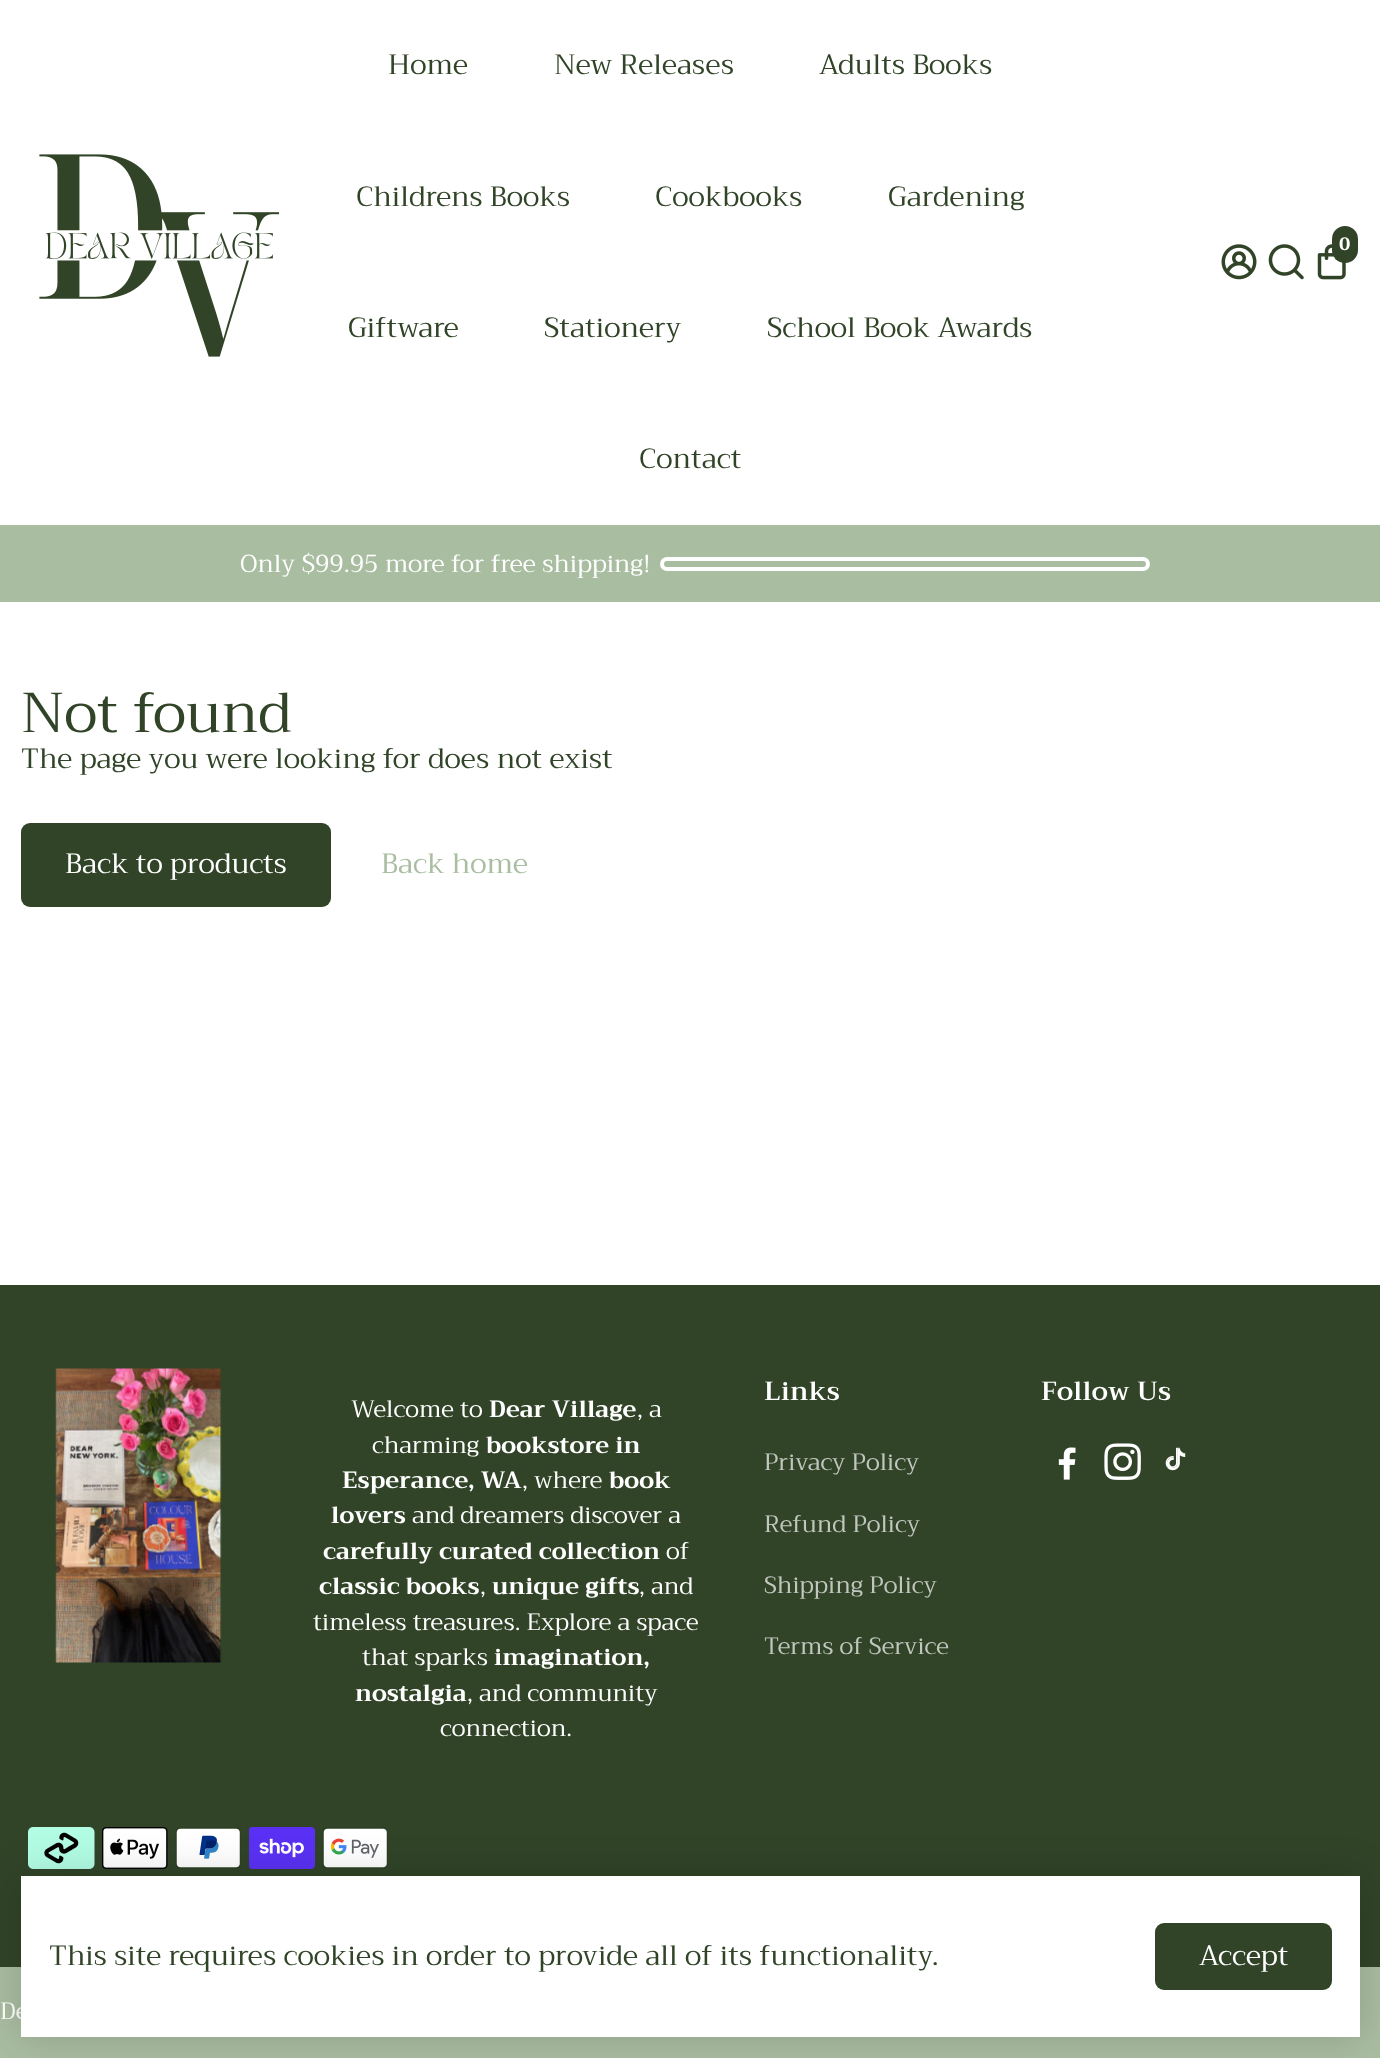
<!DOCTYPE html>
<meta charset="utf-8">
<style>body { margin: 0 } canvas { display: block }</style>
<canvas id="canvas" width="1380" height="2058"></canvas>
<script type="module">
  const canvas = document.getElementById("canvas");
  const g = canvas.getContext("2d");
  g.miterLimit = 4;
  g.fontKerning = "normal";
  function drawText(s, x, y, [font, color]) {
    g.font = font;
    g.fillStyle = color;
    g.fillText(s, x, y);
  }
  function fillBox(x, y, w, h, color) {
    g.fillStyle = color;
    g.fillRect(x, y, w, h);
  }
  function fillRounded(x, y, w, h, r, color) {
    g.fillStyle = color;
    g.beginPath();
    g.roundRect(x, y, w, h, r);
    g.fill();
  }
  async function drawPicture(src, x, y, w, h) {
    const img = new Image();
    img.src = src;
    await img.decode();
    g.drawImage(img, x, y, w, h);
  }

  const s1 = ["28px Trirong", "#314428"];
  const s2 = ["bold 18px Trirong", "#FFFFFF"];
  const s3 = ["24.5px Trirong", "#FFFFFF"];
  const s4 = ["56px Trirong", "#314428"];
  const s5 = ["28px Trirong", "#FFFFFF"];
  const s6 = ["28px Trirong", "#A9BDA1"];
  const s7 = ["600 26.25px Trirong", "#FFFFFF"];
  const s8 = ["23.6px Trirong", "#C1C7BF"];
  const s9 = ["23.6px Trirong", "#FFFFFF"];
  const s10 = ["bold 23.6px Trirong", "#FFFFFF"];

  fillBox(0, 0, 1380, 2058, "#FFFFFF");
  await drawPicture("pic1.png", 39, 154, 241, 203);
  drawText("Home", 388, 74, s1);
  drawText("New Releases", 554, 74, s1);
  drawText("Adults Books", 819, 74, s1);
  drawText("Childrens Books", 356, 206, s1);
  drawText("Cookbooks", 655, 206, s1);
  drawText("Gardening", 888, 206, s1);
  drawText("Giftware", 348, 337, s1);
  drawText("Stationery", 544, 337, s1);
  drawText("School Book Awards", 767, 337, s1);
  drawText("Contact", 639, 468, s1);
  await drawPicture("pic2.png", 1221, 244, 36, 36);
  await drawPicture("pic3.png", 1268, 244, 36, 36);
  await drawPicture("pic4.png", 1317, 244, 29, 36);
  fillRounded(1332, 226, 26, 37, 13, "#314428");
  drawText("0", 1339, 250, s2);
  fillBox(0, 525, 1380, 77, "#A9BDA1");
  drawText("Only $99.95 more for free shipping!", 240, 572, s3);
  g.beginPath();
  g.roundRect(662, 559, 486, 10, 5);
  g.strokeStyle = "#FFFFFF";
  g.lineWidth = 4;
  g.stroke();
  drawText("Not found", 21, 732, s4);
  drawText("The page you were looking for does not exist", 21, 768, s1);
  fillRounded(21, 823, 310, 84, 9, "#314428");
  drawText("Back to products", 65, 873, s5);
  drawText("Back home", 381, 873, s6);
  fillBox(0, 1285, 1380, 682, "#314428");
  await drawPicture("pic5.png", 55, 1368, 167, 295);
  g.letterSpacing = "0.25px";
  drawText("Links", 764, 1400, s7);
  g.letterSpacing = "0px";
  drawText("Privacy Policy", 764, 1470, s8);
  drawText("Refund Policy", 764, 1532, s8);
  drawText("Shipping Policy", 764, 1593, s8);
  drawText("Terms of Service", 764, 1654, s8);
  g.letterSpacing = "0.25px";
  drawText("Follow Us", 1041, 1400, s7);
  await drawPicture("pic6.png", 1058, 1447, 18, 33);
  await drawPicture("pic7.png", 1104, 1443, 37, 37);
  await drawPicture("pic8.png", 1165, 1447, 21, 24);
  g.letterSpacing = "0px";
  drawText("Welcome to", 351, 1417, s9);
  drawText("Dear Village", 489, 1417, s10);
  drawText(", a", 637, 1417, s9);
  drawText("charming", 372, 1453, s9);
  drawText("bookstore in", 486, 1453, s10);
  drawText("Esperance, WA", 342, 1488, s10);
  drawText(", where", 522, 1488, s9);
  drawText("book", 609, 1488, s10);
  drawText("lovers", 331, 1523, s10);
  drawText("and dreamers discover a", 412, 1523, s9);
  drawText("carefully curated collection", 323, 1559, s10);
  drawText("of", 666, 1559, s9);
  drawText("classic books", 319, 1594, s10);
  drawText(",", 480, 1594, s9);
  drawText("unique gifts", 492, 1594, s10);
  drawText(", and", 639, 1594, s9);
  drawText("timeless treasures. Explore a space", 313, 1630, s9);
  drawText("that sparks", 362, 1665, s9);
  drawText("imagination,", 494, 1665, s10);
  drawText("nostalgia", 355, 1701, s10);
  drawText(", and community", 467, 1701, s9);
  drawText("connection.", 440, 1736, s9);
  await drawPicture("pic9.png", 28, 1827, 67, 42);
  await drawPicture("pic10.png", 102, 1827, 66, 42);
  await drawPicture("pic11.png", 175, 1827, 66, 42);
  await drawPicture("pic12.png", 249, 1827, 66, 42);
  await drawPicture("pic13.png", 322, 1827, 66, 42);
  fillBox(0, 1967, 1380, 91, "#A9BDA1");
  drawText("De", 0, 2019, s9);
  g.fillStyle = "rgba(0, 0, 0, 0.16)";
  g.filter = "blur(21px)";
  g.beginPath();
  g.rect(21, 1876, 1339, 161);
  g.fill();
  g.filter = "none";
  fillBox(21, 1876, 1339, 161, "#FFFFFF");
  drawText("This site requires cookies in order to provide all of its functionality.", 49, 1965, s1);
  fillRounded(1155, 1923, 177, 67, 9, "#314428");
  drawText("Accept", 1199, 1965, s5);
</script>
